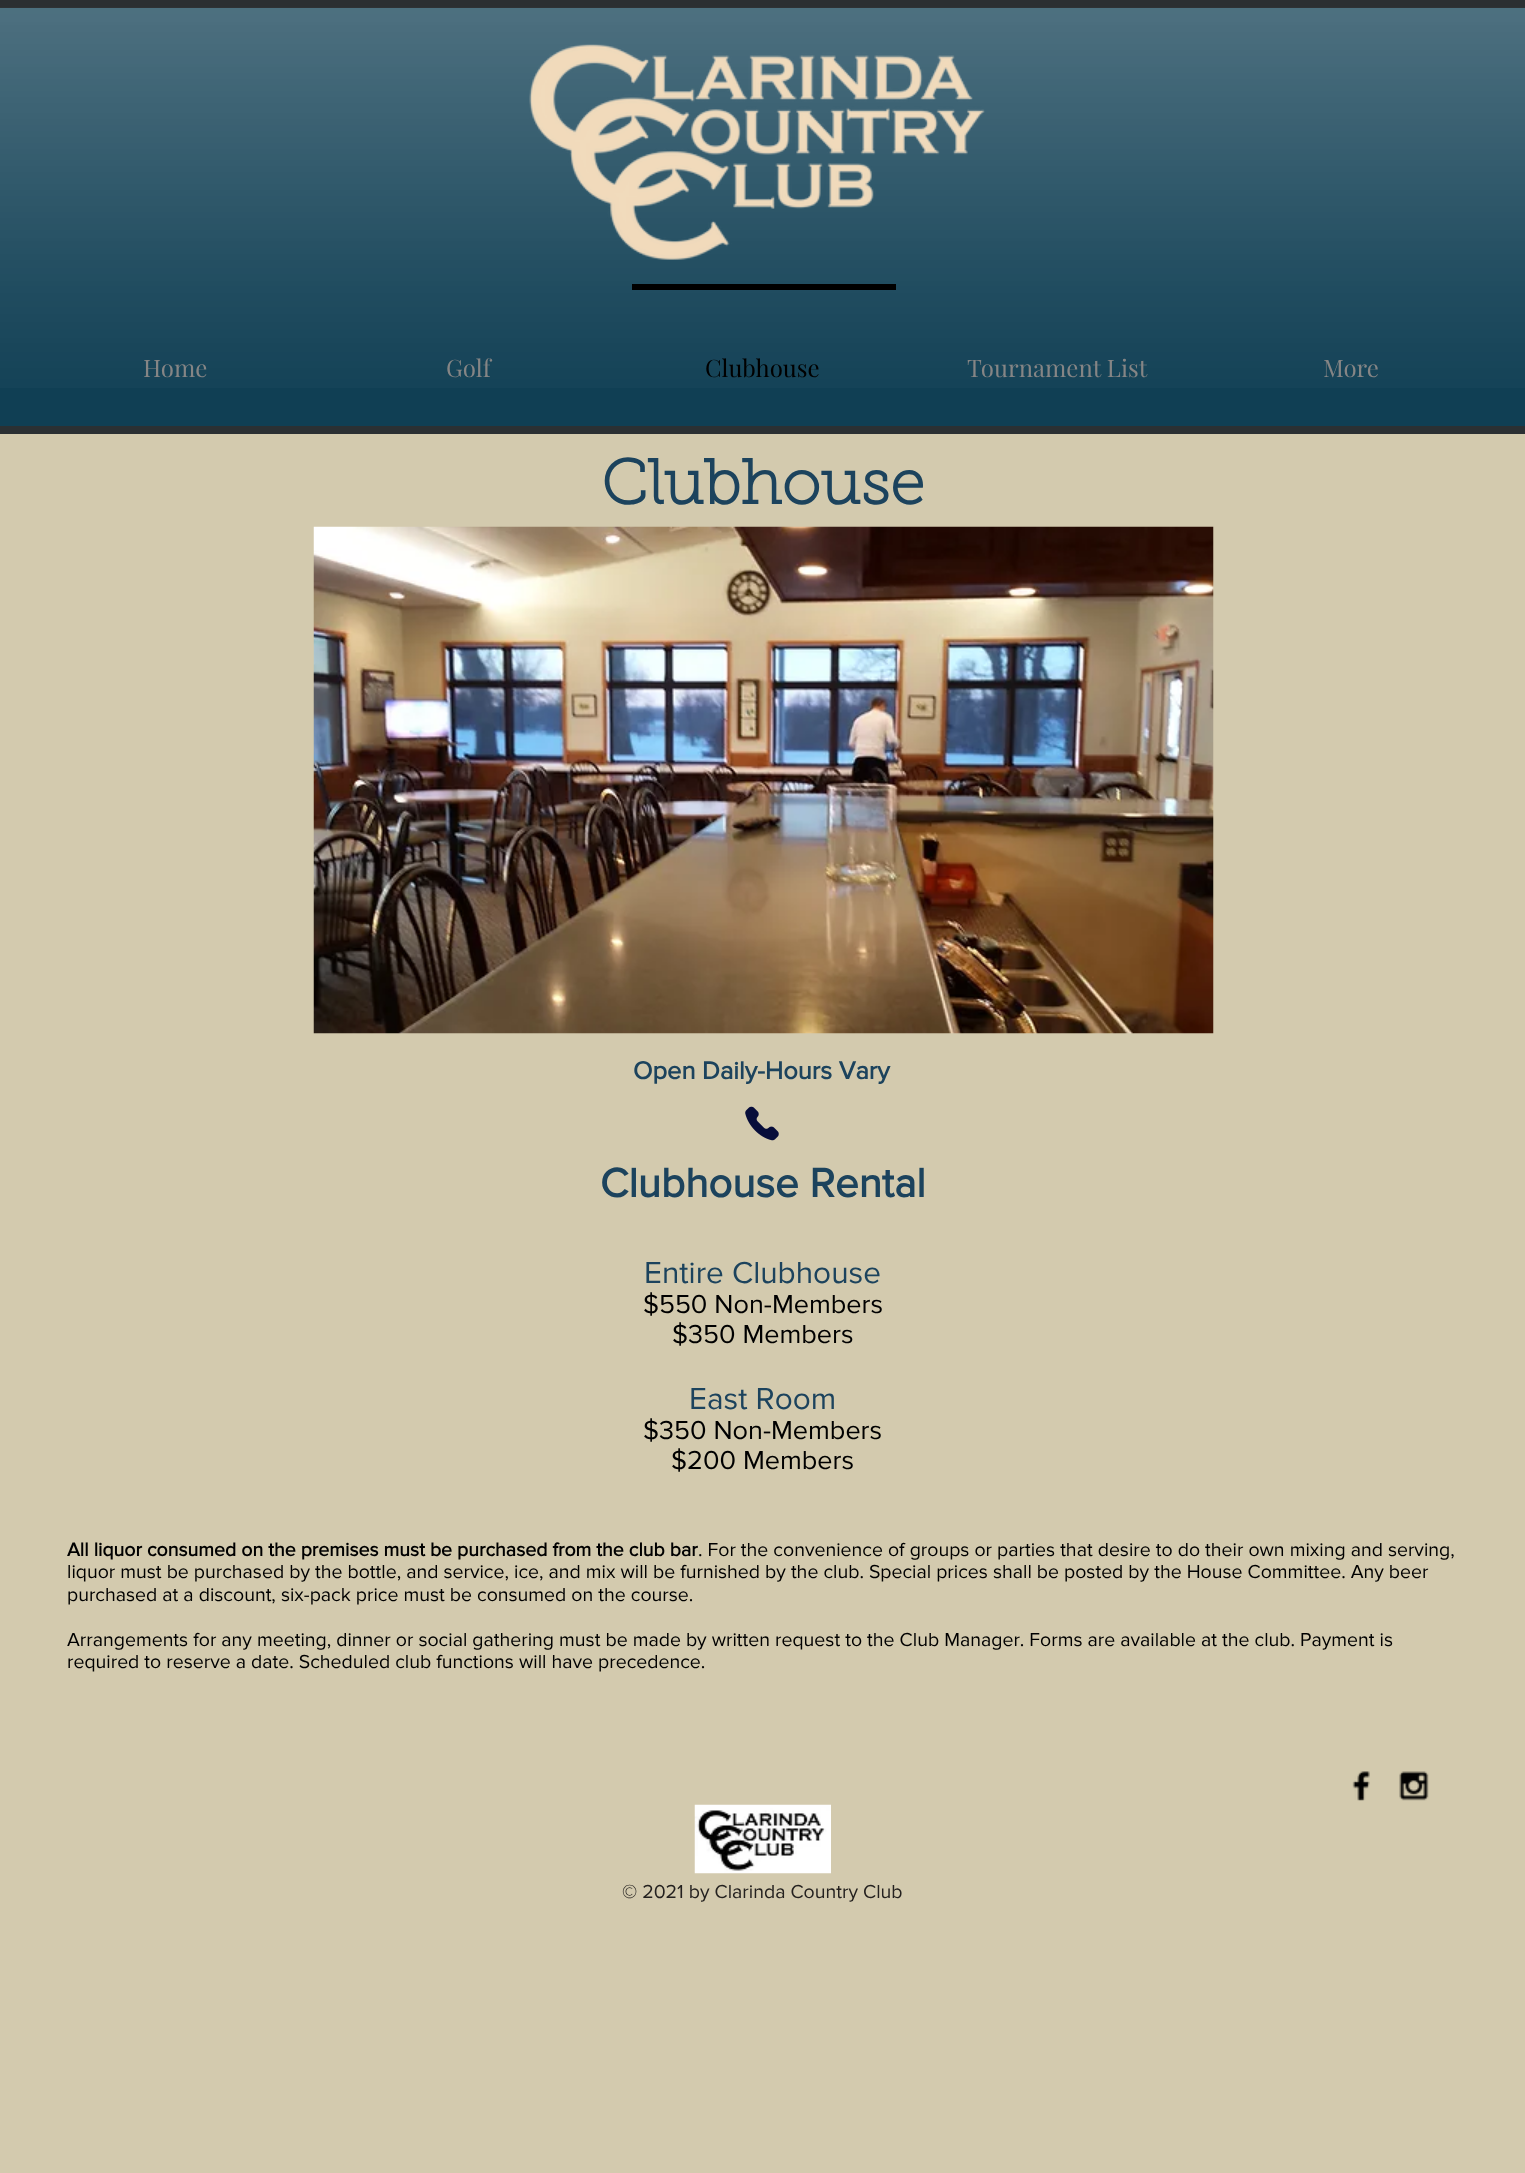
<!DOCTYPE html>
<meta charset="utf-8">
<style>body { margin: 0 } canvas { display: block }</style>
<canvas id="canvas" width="1525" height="2173"></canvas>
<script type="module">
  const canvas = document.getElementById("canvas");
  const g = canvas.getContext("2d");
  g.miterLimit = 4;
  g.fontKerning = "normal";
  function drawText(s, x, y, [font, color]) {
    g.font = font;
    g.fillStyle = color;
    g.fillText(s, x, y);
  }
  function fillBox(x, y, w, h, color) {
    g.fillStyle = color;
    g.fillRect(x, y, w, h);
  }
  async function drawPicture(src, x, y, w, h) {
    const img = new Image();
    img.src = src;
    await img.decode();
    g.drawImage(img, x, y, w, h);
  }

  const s1 = ["24px Playfair Display", "#858585"];
  const s2 = ["24px Playfair Display", "#000000"];
  const s3 = ["bold 63px 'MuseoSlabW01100'", "#1C435D"];
  const s4 = ["bold 25.5px 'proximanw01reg'", "#1C435D"];
  const s5 = ["bold 42px 'proximanw01reg'", "#1C435D"];
  const s6 = ["31.5px 'proximanw01reg'", "#1C435D"];
  const s7 = ["27px 'proximanw01reg'", "#000000"];
  const s8 = ["bold 19.5px 'proximanw01reg'", "#000000"];
  const s9 = ["19.5px 'proximanw01reg'", "#000000"];
  const s10 = ["19.5px 'proximanw01reg'", "#24211F"];

  fillBox(0, 0, 1525, 2173, "#D3CAAE");
  fillBox(0, 0, 1525, 426, "#103F54");
  await drawPicture("pic1.png", 0, 7, 1525, 381);
  fillBox(0, 0, 1525, 8, "rgba(47, 46, 46, 0.88)");
  fillBox(0, 426, 1525, 8, "#2B3033");
  await drawPicture("pic2.png", 529, 44, 456, 216);
  drawText("Home", 143, 377, s1);
  drawText("Golf", 446, 377, s1);
  fillBox(632, 284, 264, 6, "#000000");
  drawText("Clubhouse", 705, 377, s2);
  drawText("Tournament List", 967, 377, s1);
  drawText("More", 1323, 377, s1);
  drawText("Clubhouse", 601, 504, s3);
  await drawPicture("pic3.png", 313, 526, 901, 508);
  drawText("Open Daily-Hours Vary", 633, 1079, s4);
  await drawPicture("pic4.png", 745, 1106, 34, 35);
  drawText("Clubhouse Rental", 600, 1197, s5);
  drawText("Entire Clubhouse", 644, 1283, s6);
  drawText("$550 Non-Members", 643, 1313, s7);
  drawText("$350 Members", 672, 1343, s7);
  drawText("East Room", 689, 1409, s6);
  drawText("$350 Non-Members", 643, 1439, s7);
  drawText("$200 Members", 671, 1469, s7);
  drawText("All liquor consumed on the premises must be purchased from the club bar", 67, 1556, s8);
  drawText(". For the convenience of groups or parties that desire to do their own mixing and serving,", 698, 1556, s9);
  drawText("liquor must be purchased by the bottle, and service, ice, and mix will be furnished by the club. Special prices shall be posted by the House Committee. Any beer", 67, 1578, s9);
  drawText("purchased at a discount, six-pack price must be consumed on the course.", 67, 1601, s9);
  drawText("Arrangements for any meeting, dinner or social gathering must be made by written request to the Club Manager. Forms are available at the club. Payment is", 67, 1646, s9);
  drawText("required to reserve a date. Scheduled club functions will have precedence.", 67, 1668, s9);
  await drawPicture("pic5.png", 1352, 1771, 18, 30);
  await drawPicture("pic6.png", 1399, 1771, 30, 30);
  await drawPicture("pic7.png", 694, 1804, 137, 70);
  drawText("© 2021 by Clarinda Country Club", 622, 1898, s10);
</script>
